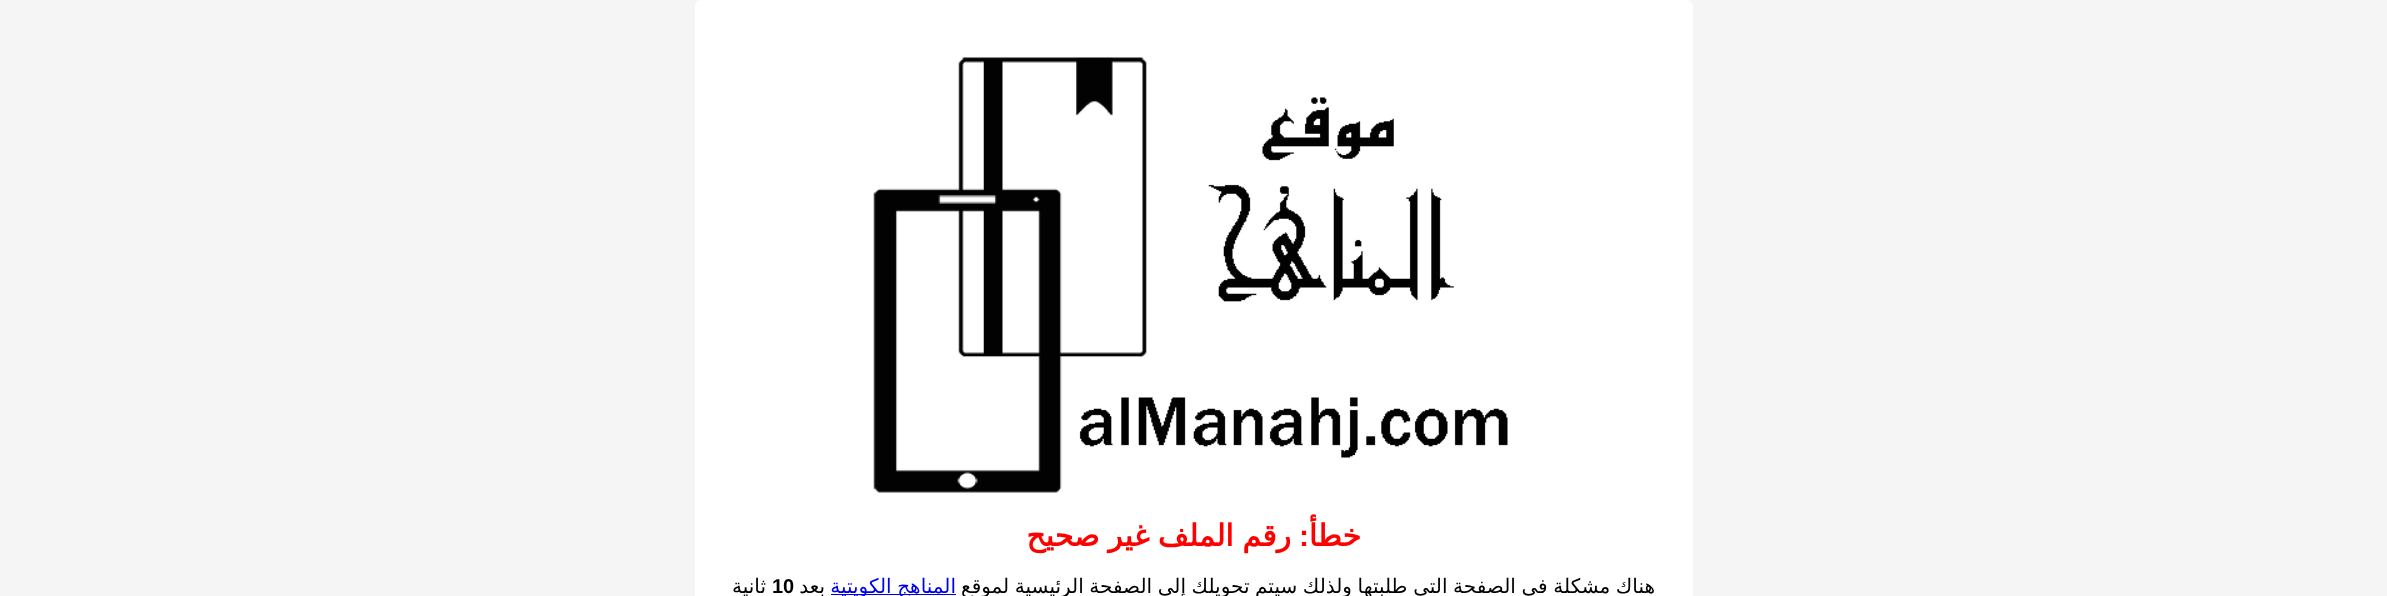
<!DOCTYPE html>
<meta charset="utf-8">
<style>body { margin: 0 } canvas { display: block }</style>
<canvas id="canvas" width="2387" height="596"></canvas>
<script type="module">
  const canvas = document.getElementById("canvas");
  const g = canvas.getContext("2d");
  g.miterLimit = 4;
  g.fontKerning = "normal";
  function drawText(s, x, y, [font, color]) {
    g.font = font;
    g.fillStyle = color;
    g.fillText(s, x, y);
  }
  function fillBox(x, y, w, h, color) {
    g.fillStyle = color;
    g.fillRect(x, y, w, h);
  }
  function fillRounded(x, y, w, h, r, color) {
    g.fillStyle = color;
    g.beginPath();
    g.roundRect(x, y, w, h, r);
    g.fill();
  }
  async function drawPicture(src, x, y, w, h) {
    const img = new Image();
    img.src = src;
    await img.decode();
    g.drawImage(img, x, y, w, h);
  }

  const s1 = ["bold 30px DejaVu Sans", "#FF0000"];
  const s2 = ["bold 30px Liberation Sans", "#FF0000"];
  const s3 = ["20px DejaVu Sans", "#000000"];
  const s4 = ["20px DejaVu Sans", "#0000EE"];
  const s5 = ["bold 20px Liberation Sans", "#000000"];

  fillBox(0, 0, 2387, 596, "#F5F5F5");
  fillRounded(695, 0, 998, 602, 6, "#FFFFFF");
  await drawPicture("pic1.png", 873, 57, 635, 436);
  g.direction = "rtl";
  drawText("خطأ", 1361, 546, s1);
  drawText(":", 1309, 546, s2);
  g.wordSpacing = "-1px";
  drawText("رقم الملف غير صحيح", 1291, 546, s1);
  g.wordSpacing = "-0.75px";
  drawText("هناك مشكلة في الصفحة التي طلبتها ولذلك سيتم تحويلك إلى الصفحة الرئيسية لموقع", 1655, 593, s3);
  fillBox(831, 594, 125, 1, "#0000EE");
  drawText("المناهج الكويتية", 956, 593, s4);
  g.wordSpacing = "0px";
  drawText("بعد", 825, 593, s3);
  g.direction = "ltr";
  drawText("10", 772, 593, s5);
  g.direction = "rtl";
  drawText("ثانية", 766, 593, s3);
</script>
